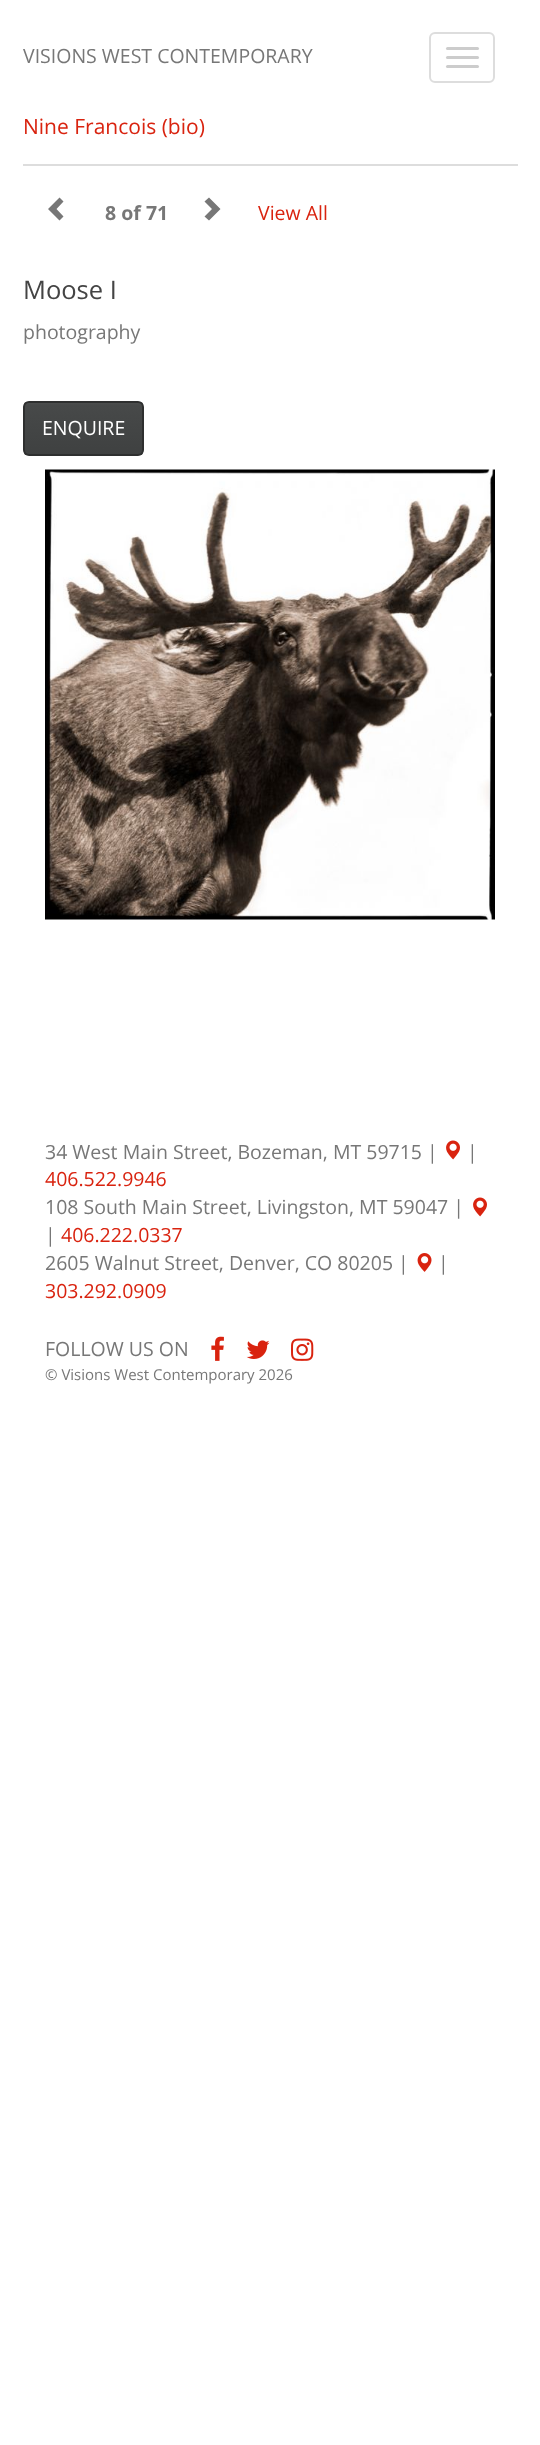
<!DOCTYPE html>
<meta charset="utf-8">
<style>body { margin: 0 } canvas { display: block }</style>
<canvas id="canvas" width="540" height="2445"></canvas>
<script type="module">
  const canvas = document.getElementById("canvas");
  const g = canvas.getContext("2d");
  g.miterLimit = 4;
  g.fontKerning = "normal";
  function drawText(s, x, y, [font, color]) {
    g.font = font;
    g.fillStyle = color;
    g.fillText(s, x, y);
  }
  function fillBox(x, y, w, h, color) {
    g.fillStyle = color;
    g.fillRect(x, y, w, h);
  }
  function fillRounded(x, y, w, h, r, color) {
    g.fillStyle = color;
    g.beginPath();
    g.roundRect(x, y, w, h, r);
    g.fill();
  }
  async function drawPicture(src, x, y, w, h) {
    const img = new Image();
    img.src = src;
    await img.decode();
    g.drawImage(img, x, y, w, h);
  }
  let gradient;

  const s1 = ["19.5px Open Sans", "#777777"];
  const s2 = ["21px Open Sans", "#D9230F"];
  const s3 = ["bold 19.5px Open Sans", "#777777"];
  const s4 = ["19.5px Open Sans", "#D9230F"];
  const s5 = ["25.5px Open Sans", "#444444"];
  const s6 = ["19.5px Open Sans", "#FFFFFF"];
  const s7 = ["15px Open Sans", "#777777"];

  fillBox(0, 0, 540, 2445, "#FFFFFF");
  drawText("VISIONS WEST CONTEMPORARY", 23, 63, s1);
  g.beginPath();
  g.roundRect(430, 33, 64, 49, 5);
  g.strokeStyle = "#DDDDDD";
  g.lineWidth = 2;
  g.stroke();
  fillRounded(446, 47, 33, 3, 1.5, "#CCCCCC");
  fillRounded(446, 56, 33, 3, 1.5, "#CCCCCC");
  fillRounded(446, 65, 33, 3, 1.5, "#CCCCCC");
  drawText("Nine Francois (bio)", 23, 134, s2);
  fillBox(23, 164, 495, 2, "#DDDDDD");
  g.fillStyle = "#777777";
  g.beginPath();
  g.moveTo(63.5, 201.5);
  g.lineTo(56.5, 209);
  g.lineTo(63.5, 216.5);
  g.lineTo(59.5, 220.5);
  g.lineTo(48, 209);
  g.lineTo(59.5, 197.5);
  g.closePath();
  g.fill();
  drawText("8 of 71", 105, 220, s3);
  g.beginPath();
  g.moveTo(220.5, 209);
  g.lineTo(209, 220.5);
  g.lineTo(204.5, 216.5);
  g.lineTo(212, 209);
  g.lineTo(204.5, 201.5);
  g.lineTo(209, 197.5);
  g.closePath();
  g.fill();
  drawText("View All", 258, 220, s4);
  drawText("Moose I", 23, 299, s5);
  drawText("photography", 23, 339, s1);
  g.save();
  g.beginPath();
  g.roundRect(23, 401, 121, 55, 6);
  g.clip();
  gradient = g.createLinearGradient(83, 402, 83, 455);
  gradient.addColorStop(0, "#4F5151");
  gradient.addColorStop(0.06, "#474949");
  gradient.addColorStop(1, "#3F4141");
  g.fillStyle = gradient;
  g.fillRect(24, 402, 119, 53);
  g.restore();
  g.beginPath();
  g.roundRect(24, 402, 119, 53, 5);
  g.strokeStyle = "#2E2F2F";
  g.stroke();
  drawText("ENQUIRE", 42, 435, s6);
  await drawPicture("pic1.png", 45, 469, 450, 451);
  drawText("34 West Main Street, Bozeman, MT 59715 |", 45, 1159, s1);
  await drawPicture("pic2.png", 446, 1140, 14, 20);
  drawText("|", 467, 1159, s1);
  drawText("406.522.9946", 45, 1186, s4);
  drawText("108 South Main Street, Livingston, MT 59047 |", 45, 1214, s1);
  await drawPicture("pic2.png", 473, 1197, 14, 20);
  drawText("|", 45, 1242, s1);
  drawText("406.222.0337", 61, 1242, s4);
  drawText("2605 Walnut Street, Denver, CO 80205 |", 45, 1270, s1);
  await drawPicture("pic3.png", 417, 1253, 15, 19);
  drawText("|", 438, 1270, s1);
  drawText("303.292.0909", 45, 1298, s4);
  drawText("FOLLOW US ON", 45, 1356, s1);
  await drawPicture("pic4.png", 211, 1336, 13, 25);
  await drawPicture("pic5.png", 246, 1340, 24, 19);
  await drawPicture("pic6.png", 291, 1338, 23, 23);
  drawText("© Visions West Contemporary 2026", 45, 1380, s7);
</script>
